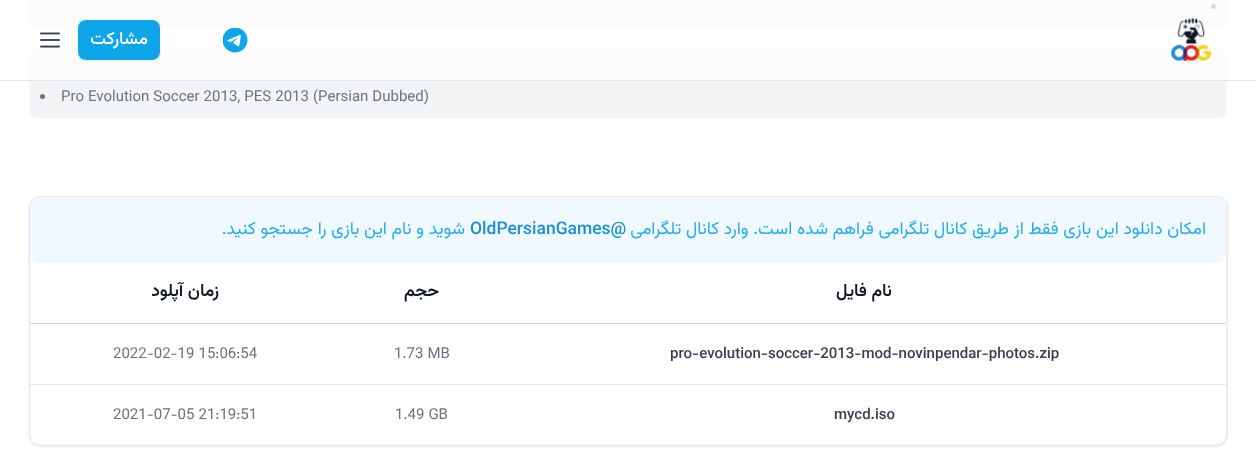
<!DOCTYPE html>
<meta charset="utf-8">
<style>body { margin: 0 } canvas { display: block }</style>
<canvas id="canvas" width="1256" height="474"></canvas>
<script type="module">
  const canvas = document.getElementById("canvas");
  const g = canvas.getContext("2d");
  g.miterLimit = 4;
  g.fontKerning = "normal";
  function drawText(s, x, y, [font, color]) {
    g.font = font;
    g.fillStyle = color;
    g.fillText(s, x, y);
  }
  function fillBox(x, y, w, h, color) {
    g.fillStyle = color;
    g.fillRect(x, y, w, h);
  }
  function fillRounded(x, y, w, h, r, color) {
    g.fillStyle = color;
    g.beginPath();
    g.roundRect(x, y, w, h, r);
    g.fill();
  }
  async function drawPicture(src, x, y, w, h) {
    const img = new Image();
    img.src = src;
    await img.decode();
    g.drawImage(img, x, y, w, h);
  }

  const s1 = ["500 17.5px Vazirmatn", "#FFFFFF"];
  const s2 = ["15px Vazirmatn", "#6B7280"];
  const s3 = ["17.5px Vazirmatn", "#25ADEB"];
  const s4 = ["500 17.5px Vazirmatn", "#1A90CD"];
  const s5 = ["600 17.5px Vazirmatn", "#111827"];
  const s6 = ["500 15px Vazirmatn", "#374151"];

  fillBox(0, 0, 1256, 474, "#FFFFFF");
  fillRounded(30, -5, 1196, 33, 5, "#F3F4F6");
  g.fillStyle = "#6B7280";
  g.beginPath();
  g.arc(1213.5, 6.5, 2.5, 0, Math.PI * 2);
  g.fill();
  fillRounded(30, 48, 1196, 70, 5, "#F3F4F6");
  fillBox(30, 0, 1196, 80, "rgba(255, 255, 255, 0.75)");
  fillBox(0, 80, 1256, 1, "#E5E7EB");
  await drawPicture("pic1.png", 40, 32, 20, 16);
  g.fillStyle = "rgba(0, 0, 0, 0.05)";
  g.filter = "blur(1px)";
  g.beginPath();
  g.roundRect(78, 21, 82, 40, 8);
  g.fill();
  g.filter = "none";
  fillRounded(78, 20, 82, 40, 8, "#0EA5E9");
  g.direction = "rtl";
  drawText("مشارکت", 148, 44, s1);
  await drawPicture("pic2.png", 223, 28, 25, 25);
  await drawPicture("pic3.png", 1171, 18, 41, 43);
  g.fillStyle = "#6B7280";
  g.beginPath();
  g.arc(42.5, 96.5, 2.5, 0, Math.PI * 2);
  g.fill();
  g.direction = "ltr";
  drawText("Pro Evolution Soccer 2013, PES 2013 (Persian Dubbed)", 61, 101, s2);
  g.fillStyle = "rgba(0, 0, 0, 0.1)";
  g.filter = "blur(1px)";
  g.beginPath();
  g.roundRect(31, 200, 1194, 245, 9);
  g.fill();
  g.filter = "none";
  g.filter = "blur(2px)";
  g.beginPath();
  g.roundRect(30, 199, 1196, 247, 10);
  g.fill();
  g.filter = "none";
  g.beginPath();
  g.roundRect(29.5, 196.5, 1198, 249, 10.5);
  g.strokeStyle = "#E5E7EB";
  g.stroke();
  fillRounded(30, 198, 1196, 247, 10, "#FFFFFF");
  fillRounded(30, 198, 1196, 65, 10, "#F0F9FF");
  g.direction = "rtl";
  drawText("شوید و نام این بازی را جستجو کنید.", 465, 234, s3);
  g.direction = "ltr";
  drawText("OldPersianGames@", 470, 234, s4);
  g.direction = "rtl";
  drawText("امکان دانلود این بازی فقط از طریق کانال تلگرامی فراهم شده است. وارد کانال تلگرامی", 1206, 234, s3);
  drawText("زمان آپلود", 219, 296, s5);
  drawText("حجم", 439, 296, s5);
  drawText("نام فایل", 892, 296, s5);
  fillBox(30, 323, 1196, 1, "#D1D5DB");
  g.direction = "ltr";
  drawText("2022-02-19 15:06:54", 113, 358, s2);
  drawText("1.73 MB", 394, 358, s2);
  drawText("pro-evolution-soccer-2013-mod-novinpendar-photos.zip", 670, 358, s6);
  fillBox(30, 384, 1196, 1, "#E5E7EB");
  drawText("2021-07-05 21:19:51", 113, 419, s2);
  drawText("1.49 GB", 395, 419, s2);
  drawText("mycd.iso", 834, 419, s6);
</script>
